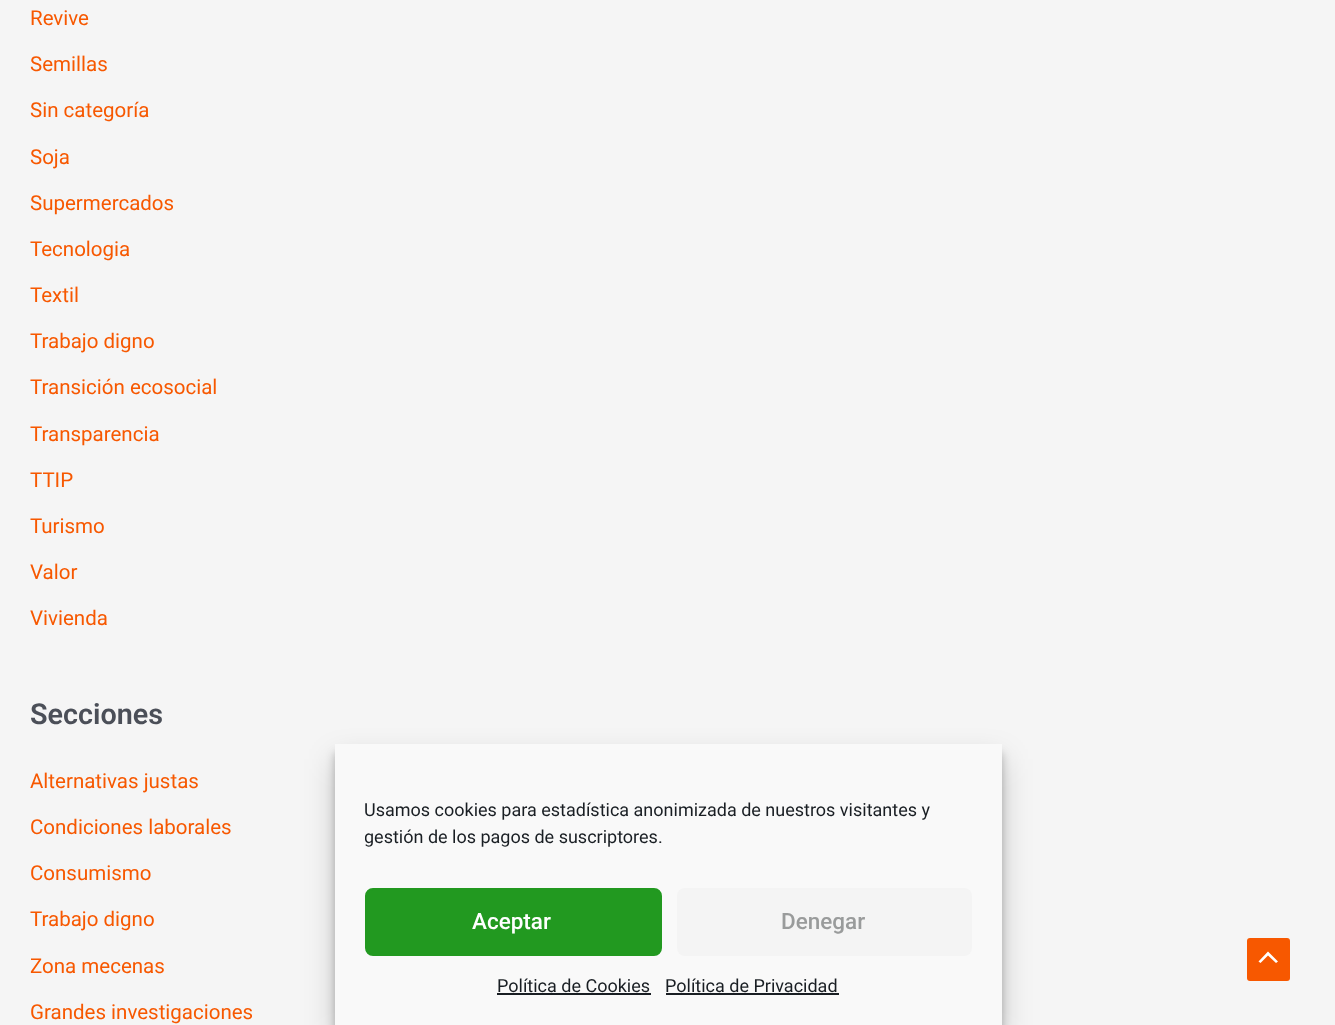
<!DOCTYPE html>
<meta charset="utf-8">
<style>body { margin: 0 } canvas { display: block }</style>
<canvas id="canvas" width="1335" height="1025"></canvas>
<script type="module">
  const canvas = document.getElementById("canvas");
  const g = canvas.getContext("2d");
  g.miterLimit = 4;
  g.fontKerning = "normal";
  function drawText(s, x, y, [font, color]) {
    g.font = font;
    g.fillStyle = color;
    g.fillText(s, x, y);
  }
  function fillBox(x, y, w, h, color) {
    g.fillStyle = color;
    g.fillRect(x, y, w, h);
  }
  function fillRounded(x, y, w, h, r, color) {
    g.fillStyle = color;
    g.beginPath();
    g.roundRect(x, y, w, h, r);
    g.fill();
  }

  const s1 = ["20.5px Roboto", "#F75800"];
  const s2 = ["600 28.75px Roboto", "#4B4F58"];
  const s3 = ["18px Roboto", "#191E23"];
  const s4 = ["500 22.5px Roboto", "#FFFFFF"];
  const s5 = ["500 22.5px Roboto", "#999B9B"];

  fillBox(0, 0, 1335, 1025, "#F5F5F5");
  drawText("Revive", 30, 25, s1);
  drawText("Semillas", 30, 71, s1);
  drawText("Sin categoría", 30, 117, s1);
  drawText("Soja", 30, 164, s1);
  drawText("Supermercados", 30, 210, s1);
  drawText("Tecnologia", 30, 256, s1);
  drawText("Textil", 30, 302, s1);
  drawText("Trabajo digno", 30, 348, s1);
  drawText("Transición ecosocial", 30, 394, s1);
  drawText("Transparencia", 30, 441, s1);
  drawText("TTIP", 30, 487, s1);
  drawText("Turismo", 30, 533, s1);
  drawText("Valor", 30, 579, s1);
  drawText("Vivienda", 30, 625, s1);
  drawText("Secciones", 30, 724, s2);
  drawText("Alternativas justas", 30, 788, s1);
  drawText("Condiciones laborales", 30, 834, s1);
  drawText("Consumismo", 30, 880, s1);
  drawText("Trabajo digno", 30, 926, s1);
  drawText("Zona mecenas", 30, 973, s1);
  drawText("Grandes investigaciones", 30, 1019, s1);
  g.fillStyle = "rgba(0, 0, 0, 0.23)";
  g.filter = "blur(4.5px)";
  g.beginPath();
  g.rect(335, 753, 667, 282);
  g.fill();
  g.filter = "none";
  g.fillStyle = "rgba(0, 0, 0, 0.19)";
  g.filter = "blur(15px)";
  g.beginPath();
  g.rect(335, 759, 667, 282);
  g.fill();
  g.filter = "none";
  fillBox(335, 744, 667, 281, "#F9F9F9");
  drawText("Usamos cookies para estadística anonimizada de nuestros visitantes y", 364, 816, s3);
  g.save();
  g.beginPath();
  g.rect(365, 797, 607, 61);
  g.clip();
  drawText("gestión de los pagos de suscriptores.", 364, 843, s3);
  g.restore();
  g.fillStyle = "#229920";
  g.beginPath();
  g.roundRect(366, 889, 295, 66, 7);
  g.fill();
  g.strokeStyle = "#229920";
  g.lineWidth = 2;
  g.stroke();
  drawText("Aceptar", 472, 929, s4);
  fillRounded(677, 888, 295, 68, 8, "#F4F4F4");
  drawText("Denegar", 781, 929, s5);
  drawText("Política de Cookies", 497, 992, s3);
  fillBox(497, 993, 154, 2, "#191E23");
  drawText("Política de Privacidad", 665, 992, s3);
  fillBox(666, 993, 173, 2, "#191E23");
  fillRounded(1247, 938, 43, 43, 3, "#F75800");
  g.fillStyle = "#FFFFFF";
  g.beginPath();
  g.moveTo(1278, 961.5);
  g.lineTo(1268, 951.5);
  g.lineTo(1258.5, 961.5);
  g.lineTo(1260.5, 963);
  g.lineTo(1268, 955.5);
  g.lineTo(1276, 963);
  g.closePath();
  g.fill();
</script>
